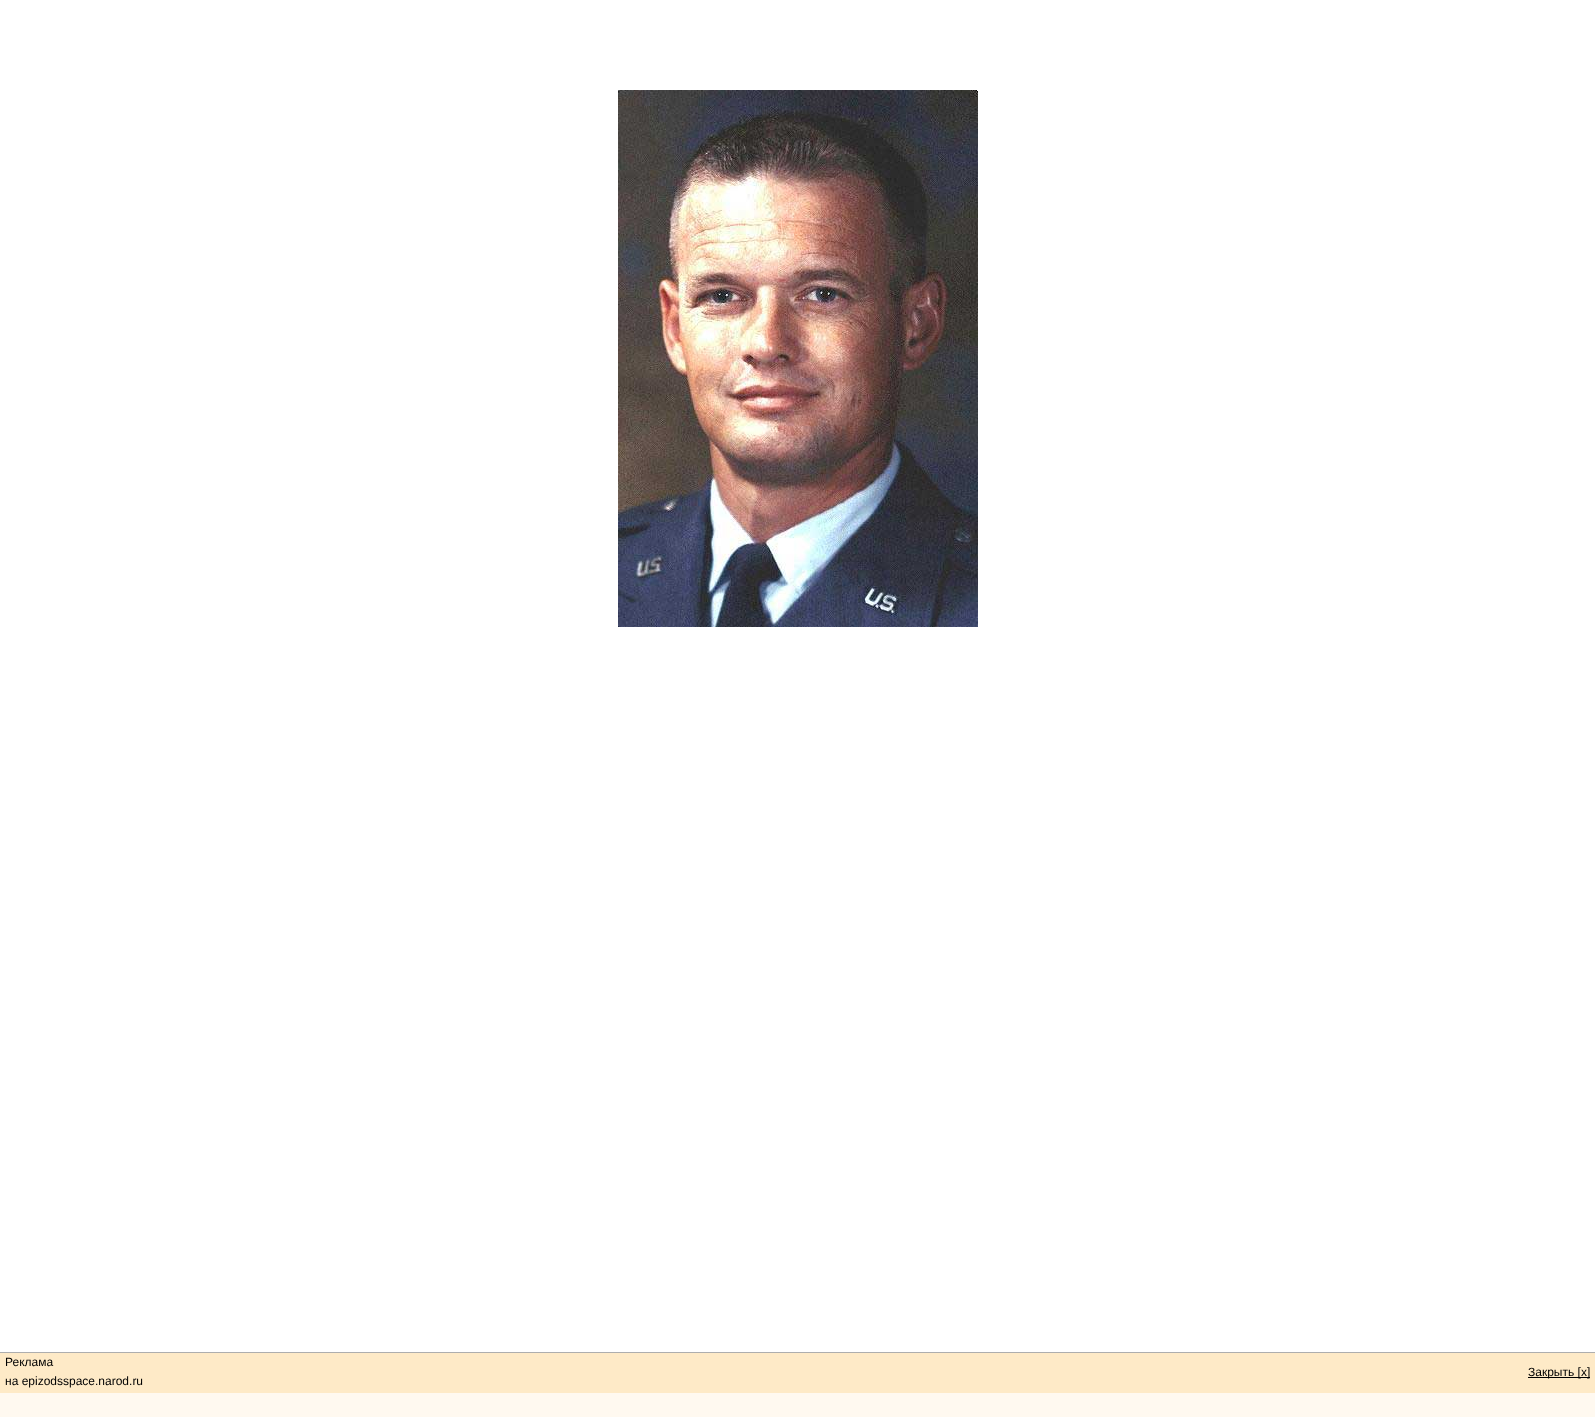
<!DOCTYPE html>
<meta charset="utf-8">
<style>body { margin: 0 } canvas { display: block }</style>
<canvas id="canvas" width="1595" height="1417"></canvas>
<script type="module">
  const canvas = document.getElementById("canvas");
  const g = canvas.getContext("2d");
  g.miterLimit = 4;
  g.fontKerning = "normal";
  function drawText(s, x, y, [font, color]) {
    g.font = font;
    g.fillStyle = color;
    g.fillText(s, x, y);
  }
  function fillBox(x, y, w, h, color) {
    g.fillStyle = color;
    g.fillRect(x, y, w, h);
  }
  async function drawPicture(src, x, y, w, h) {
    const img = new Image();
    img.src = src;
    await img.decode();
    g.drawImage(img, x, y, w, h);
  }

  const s1 = ["12px Liberation Sans", "#000000"];

  fillBox(0, 0, 1595, 1417, "#FFFFFF");
  await drawPicture("pic1.png", 618, 90, 360, 537);
  fillBox(0, 1352, 1595, 1, "#AEAEAE");
  fillBox(0, 1353, 1595, 40, "#FEEAC7");
  drawText("Реклама", 5, 1366, s1);
  drawText("на epizodsspace.narod.ru", 5, 1385, s1);
  fillBox(1528, 1377, 62, 1, "#000000");
  drawText("Закрыть [x]", 1528, 1376, s1);
  fillBox(0, 1393, 1595, 24, "#FFF9F0");
</script>
